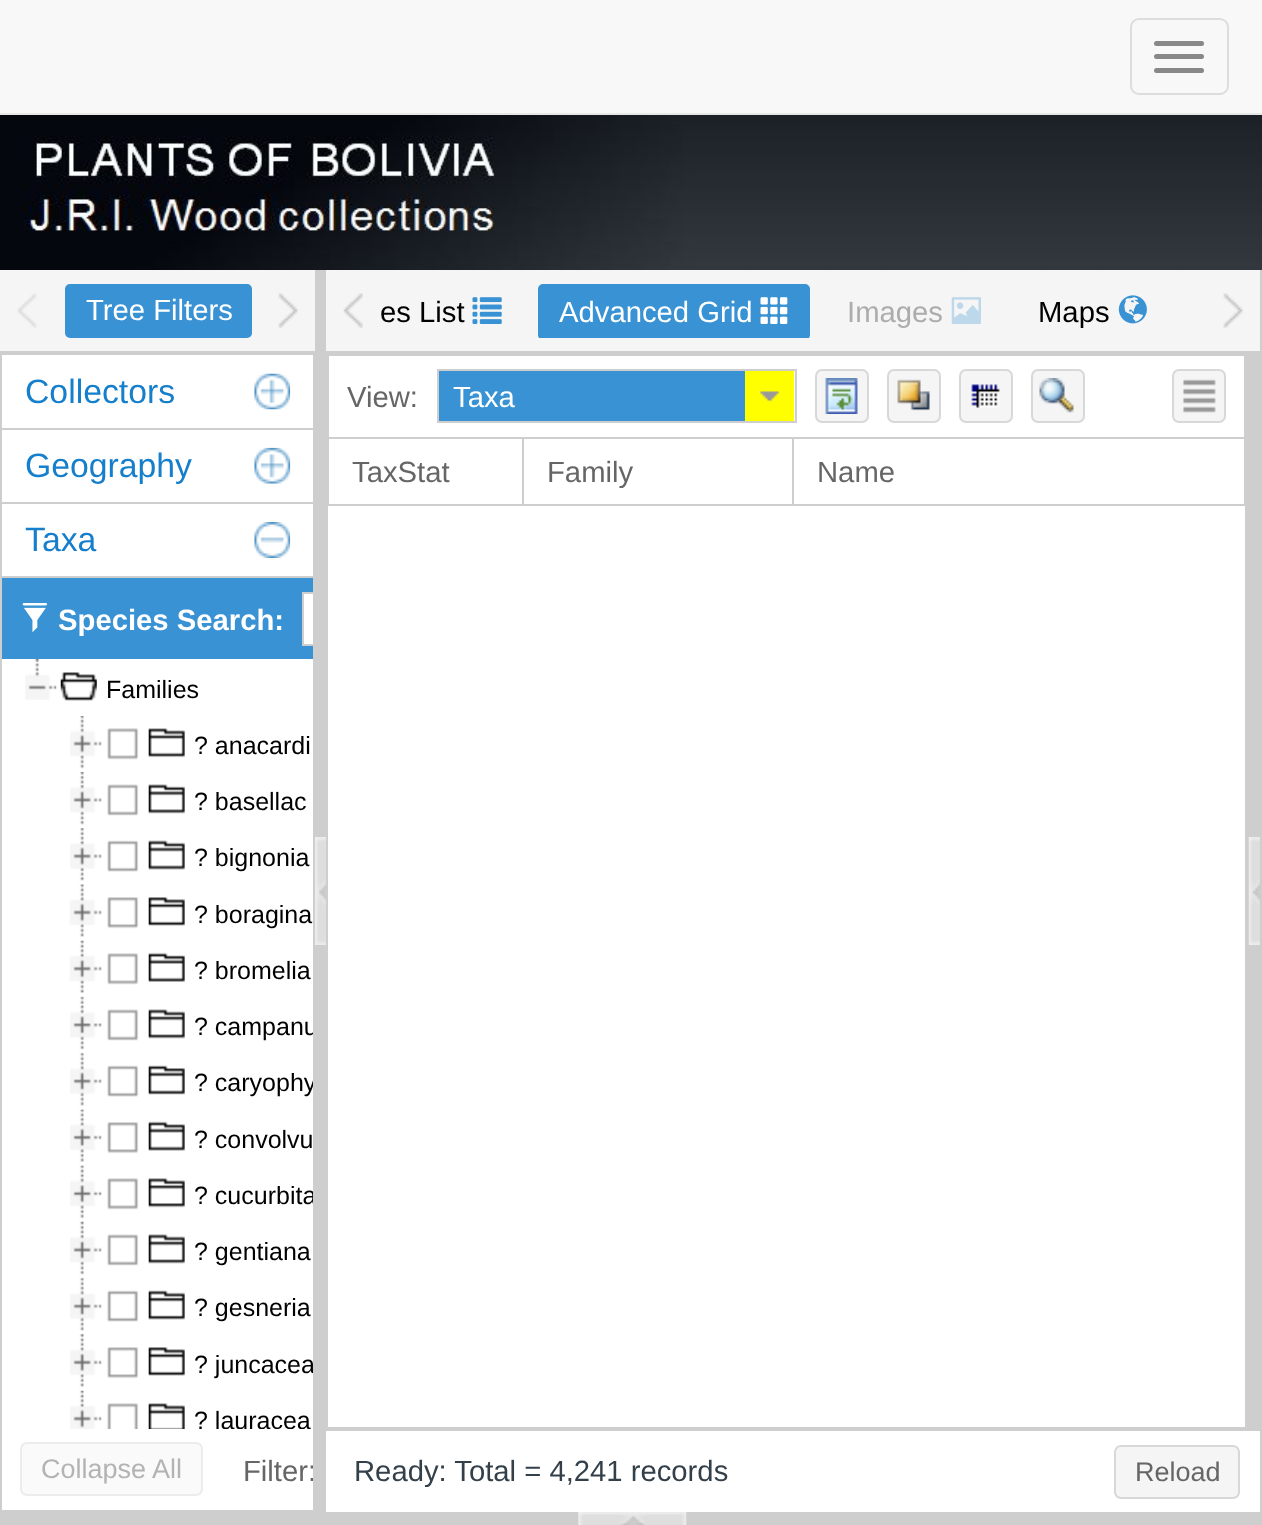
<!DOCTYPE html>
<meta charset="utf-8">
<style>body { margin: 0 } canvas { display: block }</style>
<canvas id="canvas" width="1262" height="1525"></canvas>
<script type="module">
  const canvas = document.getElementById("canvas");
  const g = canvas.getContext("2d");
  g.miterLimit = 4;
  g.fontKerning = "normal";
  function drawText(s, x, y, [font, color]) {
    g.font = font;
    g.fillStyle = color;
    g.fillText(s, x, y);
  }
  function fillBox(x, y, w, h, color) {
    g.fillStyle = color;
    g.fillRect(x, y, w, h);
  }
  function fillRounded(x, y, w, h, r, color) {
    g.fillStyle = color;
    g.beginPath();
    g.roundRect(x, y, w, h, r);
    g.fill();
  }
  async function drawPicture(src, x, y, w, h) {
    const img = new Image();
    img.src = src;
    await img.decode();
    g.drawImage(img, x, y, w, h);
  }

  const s1 = ["29.25px Liberation Sans", "#FFFFFF"];
  const s2 = ["33.75px Liberation Sans", "#157FCC"];
  const s3 = ["bold 29.25px Liberation Sans", "#FFFFFF"];
  const s4 = ["25px Liberation Sans", "#000000"];
  const s5 = ["27px Liberation Sans", "#B3B3B3"];
  const s6 = ["29.25px Liberation Sans", "#666666"];
  const s7 = ["29.25px Liberation Sans", "#000000"];
  const s8 = ["29.25px Liberation Sans", "#ACACAC"];
  const s9 = ["29.25px Liberation Sans", "#333F49"];
  const s10 = ["27px Liberation Sans", "#666666"];

  fillBox(0, 0, 1262, 1525, "#CECECE");
  fillBox(0, 0, 1262, 113, "#F8F8F8");
  fillBox(0, 113, 1262, 2, "#E7E7E7");
  g.beginPath();
  g.roundRect(1131, 19, 97, 75, 8);
  g.strokeStyle = "#DDDDDD";
  g.lineWidth = 2;
  g.stroke();
  fillRounded(1154, 41, 50, 5, 2.5, "#888888");
  fillRounded(1154, 54, 50, 5, 2.5, "#888888");
  fillRounded(1154, 68, 50, 5, 2.5, "#888888");
  await drawPicture("pic1.png", 690, 115, 572, 155);
  await drawPicture("pic2.png", 0, 115, 691, 155);
  fillBox(0, 270, 315, 81, "#F5F5F5");
  await drawPicture("pic3.png", 17, 293, 20, 35);
  g.fillStyle = "#3892D3";
  g.beginPath();
  g.roundRect(66, 285, 185, 52, 4);
  g.fill();
  g.strokeStyle = "#3892D3";
  g.stroke();
  drawText("Tree Filters", 86, 320, s1);
  await drawPicture("pic4.png", 278, 293, 20, 35);
  fillBox(2, 355, 311, 1155, "#FFFFFF");
  fillBox(2, 428, 311, 2, "#CECECE");
  drawText("Collectors", 25, 403, s2);
  await drawPicture("pic5.png", 254, 373, 37, 37);
  fillBox(2, 502, 311, 2, "#CECECE");
  drawText("Geography", 25, 477, s2);
  await drawPicture("pic6.png", 254, 447, 37, 37);
  fillBox(2, 576, 311, 2, "#CECECE");
  drawText("Taxa", 25, 551, s2);
  await drawPicture("pic7.png", 254, 522, 37, 36);
  fillBox(2, 578, 311, 81, "#3892D3");
  await drawPicture("pic8.png", 22, 603, 25, 30);
  drawText("Species Search:", 58, 630, s3);
  fillBox(328, 506, 917, 921, "#FFFFFF");
  g.save();
  g.beginPath();
  g.rect(20, 592, 293, 54);
  g.clip();
  g.strokeStyle = "#CECECE";
  g.strokeRect(303, 593, 29, 52);
  g.restore();
  fillBox(304, 594, 9, 50, "#FFFFFF");
  await drawPicture("pic9.png", 25, 659, 32, 41);
  await drawPicture("pic10.png", 60, 672, 37, 29);
  drawText("Families", 106, 698, s4);
  await drawPicture("pic11.png", 70, 716, 32, 53);
  await drawPicture("pic12.png", 107, 728, 32, 32);
  await drawPicture("pic13.png", 148, 728, 37, 30);
  drawText("? anacardi", 194, 754, s4);
  await drawPicture("pic14.png", 70, 772, 32, 53);
  await drawPicture("pic15.png", 107, 784, 32, 32);
  await drawPicture("pic16.png", 148, 784, 37, 30);
  drawText("? basellac", 194, 810, s4);
  await drawPicture("pic17.png", 70, 828, 32, 53);
  await drawPicture("pic18.png", 107, 840, 32, 32);
  await drawPicture("pic19.png", 148, 840, 37, 30);
  drawText("? bignonia", 194, 866, s4);
  await drawPicture("pic20.png", 69, 884, 33, 53);
  await drawPicture("pic21.png", 107, 897, 32, 32);
  await drawPicture("pic22.png", 148, 897, 37, 29);
  drawText("? boragina", 194, 923, s4);
  await drawPicture("pic23.png", 69, 940, 33, 54);
  await drawPicture("pic12.png", 107, 953, 32, 32);
  await drawPicture("pic24.png", 148, 952, 37, 30);
  drawText("? bromelia", 194, 979, s4);
  await drawPicture("pic25.png", 70, 996, 32, 54);
  await drawPicture("pic15.png", 107, 1009, 32, 32);
  await drawPicture("pic26.png", 148, 1009, 37, 30);
  g.save();
  g.beginPath();
  g.rect(2, 997, 311, 56);
  g.clip();
  drawText("? campanu", 194, 1035, s4);
  g.restore();
  await drawPicture("pic27.png", 70, 1052, 32, 54);
  await drawPicture("pic18.png", 107, 1065, 32, 32);
  await drawPicture("pic28.png", 148, 1065, 37, 30);
  g.save();
  g.beginPath();
  g.rect(2, 1053, 311, 56);
  g.clip();
  drawText("? caryophy", 194, 1091, s4);
  g.restore();
  await drawPicture("pic29.png", 70, 1108, 32, 54);
  await drawPicture("pic21.png", 107, 1122, 32, 32);
  await drawPicture("pic30.png", 148, 1121, 37, 30);
  drawText("? convolvu", 194, 1148, s4);
  await drawPicture("pic31.png", 70, 1165, 32, 54);
  await drawPicture("pic12.png", 107, 1178, 32, 32);
  await drawPicture("pic32.png", 148, 1178, 37, 30);
  g.save();
  g.beginPath();
  g.rect(2, 1166, 311, 56);
  g.clip();
  drawText("? cucurbita", 194, 1204, s4);
  g.restore();
  await drawPicture("pic33.png", 70, 1221, 32, 54);
  await drawPicture("pic15.png", 107, 1234, 32, 32);
  await drawPicture("pic26.png", 148, 1234, 37, 30);
  drawText("? gentiana", 194, 1260, s4);
  await drawPicture("pic34.png", 70, 1277, 32, 54);
  await drawPicture("pic18.png", 107, 1290, 32, 32);
  await drawPicture("pic35.png", 148, 1290, 37, 30);
  drawText("? gesneria", 194, 1316, s4);
  await drawPicture("pic36.png", 70, 1334, 32, 54);
  await drawPicture("pic21.png", 107, 1347, 32, 32);
  await drawPicture("pic22.png", 148, 1347, 37, 29);
  g.save();
  g.beginPath();
  g.rect(2, 1334, 311, 57);
  g.clip();
  drawText("? juncacea", 194, 1373, s4);
  g.restore();
  await drawPicture("pic37.png", 70, 1390, 32, 39);
  await drawPicture("pic38.png", 107, 1403, 32, 26);
  await drawPicture("pic39.png", 148, 1403, 37, 26);
  g.save();
  g.beginPath();
  g.rect(2, 1391, 311, 38);
  g.clip();
  drawText("? lauracea", 194, 1429, s4);
  g.restore();
  g.fillStyle = "#FAFAFA";
  g.beginPath();
  g.roundRect(21, 1443, 181, 52, 6);
  g.fill();
  g.strokeStyle = "#ECECEC";
  g.stroke();
  drawText("Collapse All", 41, 1478, s5);
  g.save();
  g.beginPath();
  g.rect(243, 1442, 70, 54);
  g.clip();
  drawText("Filter:", 243, 1481, s6);
  g.restore();
  await drawPicture("pic40.png", 315, 837, 11, 108);
  fillBox(326, 270, 934, 81, "#F5F5F5");
  await drawPicture("pic41.png", 343, 293, 20, 35);
  drawText("es List", 380, 322, s7);
  await drawPicture("pic42.png", 472, 297, 30, 27);
  g.save();
  g.beginPath();
  g.rect(380, 284, 826, 54);
  g.clip();
  g.fillStyle = "#3892D3";
  g.beginPath();
  g.roundRect(539, 285, 270, 54, 4);
  g.fill();
  g.strokeStyle = "#3892D3";
  g.stroke();
  g.restore();
  drawText("Advanced Grid", 559, 322, s1);
  await drawPicture("pic43.png", 760, 297, 28, 27);
  drawText("Images", 847, 322, s8);
  await drawPicture("pic44.png", 951, 297, 30, 27);
  drawText("Maps", 1038, 322, s7);
  await drawPicture("pic45.png", 1118, 295, 29, 29);
  await drawPicture("pic4.png", 1223, 293, 20, 35);
  fillBox(326, 1431, 934, 81, "#FFFFFF");
  fillBox(329, 356, 915, 81, "#FFFFFF");
  drawText("View:", 347, 407, s6);
  g.strokeStyle = "#CECECE";
  g.strokeRect(438, 370, 358, 52);
  fillBox(439, 371, 306, 50, "#3892D3");
  drawText("Taxa", 453, 407, s1);
  fillBox(745, 371, 49, 50, "#FFFF00");
  await drawPicture("pic46.png", 760, 391, 20, 11);
  g.fillStyle = "#F5F5F5";
  g.beginPath();
  g.roundRect(816, 370, 52, 52, 6);
  g.fill();
  g.strokeStyle = "#D8D8D8";
  g.stroke();
  await drawPicture("pic47.png", 825, 378, 33, 36);
  g.beginPath();
  g.roundRect(888, 370, 52, 52, 6);
  g.fill();
  g.stroke();
  await drawPicture("pic48.png", 897, 379, 33, 32);
  g.beginPath();
  g.roundRect(960, 370, 52, 52, 6);
  g.fill();
  g.stroke();
  await drawPicture("pic49.png", 971, 384, 29, 24);
  g.beginPath();
  g.roundRect(1032, 370, 52, 52, 6);
  g.fill();
  g.stroke();
  await drawPicture("pic50.png", 1039, 378, 35, 35);
  g.beginPath();
  g.roundRect(1173, 370, 52, 52, 6);
  g.fill();
  g.stroke();
  await drawPicture("pic51.png", 1183, 379, 33, 34);
  fillBox(329, 439, 915, 65, "#FFFFFF");
  fillBox(522, 439, 2, 65, "#CECECE");
  drawText("TaxStat", 352, 482, s6);
  fillBox(792, 439, 2, 65, "#CECECE");
  drawText("Family", 547, 482, s6);
  drawText("Name", 817, 482, s6);
  await drawPicture("pic52.png", 1248, 837, 12, 108);
  drawText("Ready: Total = 4,241 records", 354, 1481, s9);
  g.fillStyle = "#F5F5F5";
  g.beginPath();
  g.roundRect(1115, 1446, 124, 52, 6);
  g.fill();
  g.stroke();
  drawText("Reload", 1135, 1481, s10);
  await drawPicture("pic53.png", 578, 1512, 109, 13);
</script>
